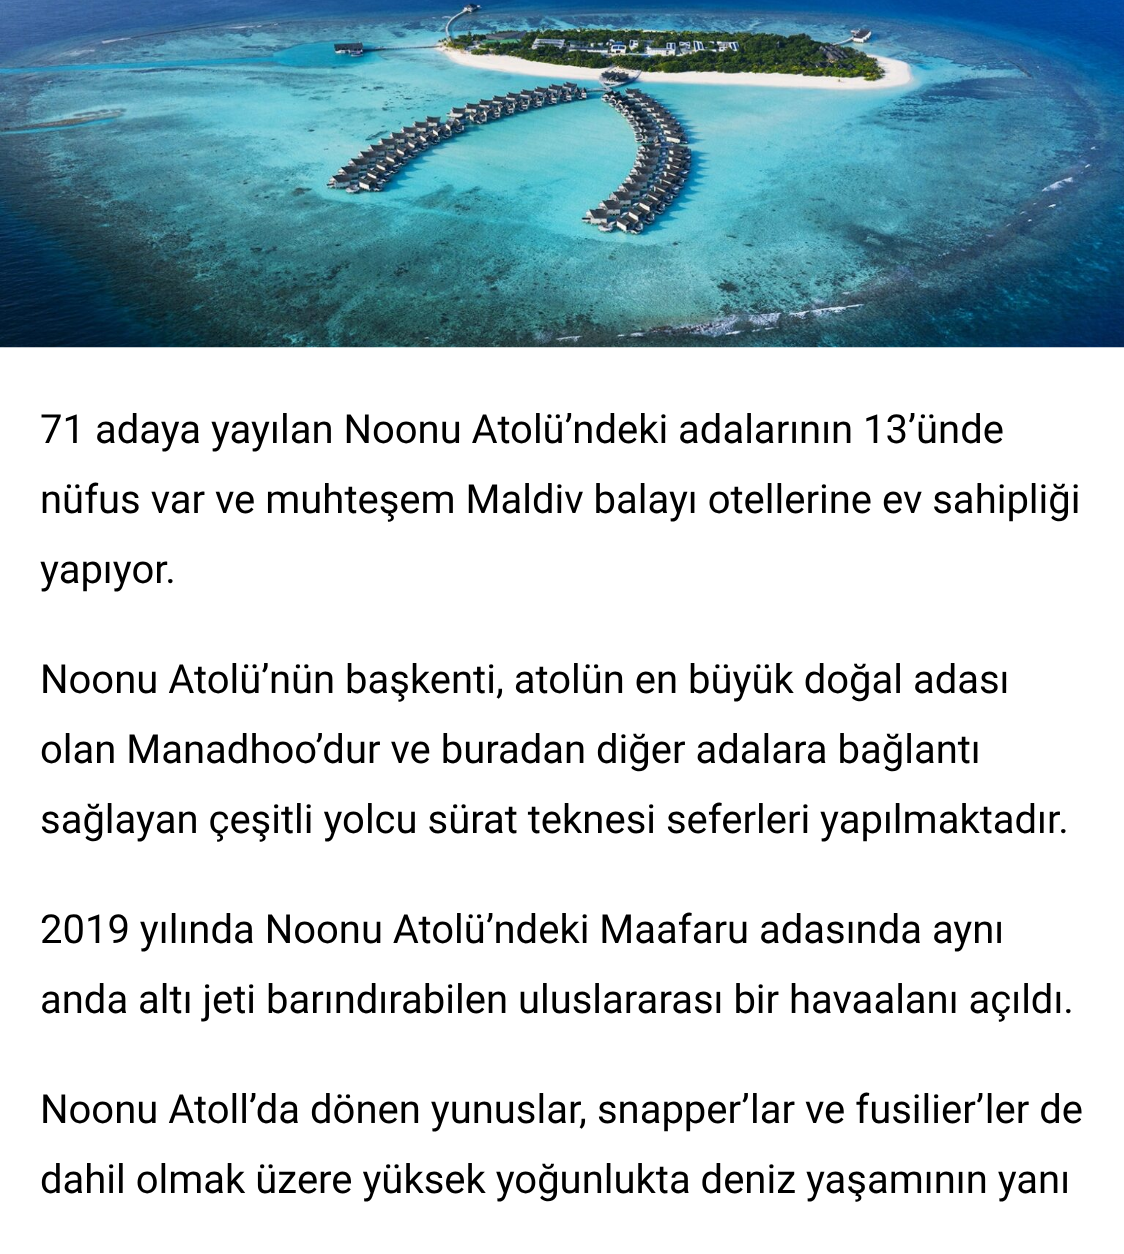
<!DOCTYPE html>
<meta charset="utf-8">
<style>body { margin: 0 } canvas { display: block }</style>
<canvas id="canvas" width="1124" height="1254"></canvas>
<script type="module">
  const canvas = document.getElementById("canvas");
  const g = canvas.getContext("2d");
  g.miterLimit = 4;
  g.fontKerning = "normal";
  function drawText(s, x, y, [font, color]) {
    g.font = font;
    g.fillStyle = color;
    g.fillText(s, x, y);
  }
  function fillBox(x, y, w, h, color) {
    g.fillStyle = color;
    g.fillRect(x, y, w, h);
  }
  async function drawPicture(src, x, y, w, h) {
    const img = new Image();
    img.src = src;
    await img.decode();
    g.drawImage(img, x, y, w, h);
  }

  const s1 = ["40px Roboto", "#000000"];

  fillBox(0, 0, 1124, 1254, "#FFFFFF");
  await drawPicture("pic1.png", 0, 0, 1124, 348);
  drawText("71 adaya yayılan Noonu Atolü’ndeki adalarının 13’ünde", 40, 443, s1);
  drawText("nüfus var ve muhteşem Maldiv balayı otellerine ev sahipliği", 40, 513, s1);
  drawText("yapıyor.", 40, 583, s1);
  drawText("Noonu Atolü’nün başkenti, atolün en büyük doğal adası", 40, 693, s1);
  drawText("olan Manadhoo’dur ve buradan diğer adalara bağlantı", 40, 763, s1);
  drawText("sağlayan çeşitli yolcu sürat teknesi seferleri yapılmaktadır.", 40, 833, s1);
  drawText("2019 yılında Noonu Atolü’ndeki Maafaru adasında aynı", 40, 943, s1);
  drawText("anda altı jeti barındırabilen uluslararası bir havaalanı açıldı.", 40, 1013, s1);
  drawText("Noonu Atoll’da dönen yunuslar, snapper’lar ve fusilier’ler de", 40, 1123, s1);
  drawText("dahil olmak üzere yüksek yoğunlukta deniz yaşamının yanı", 40, 1193, s1);
</script>
